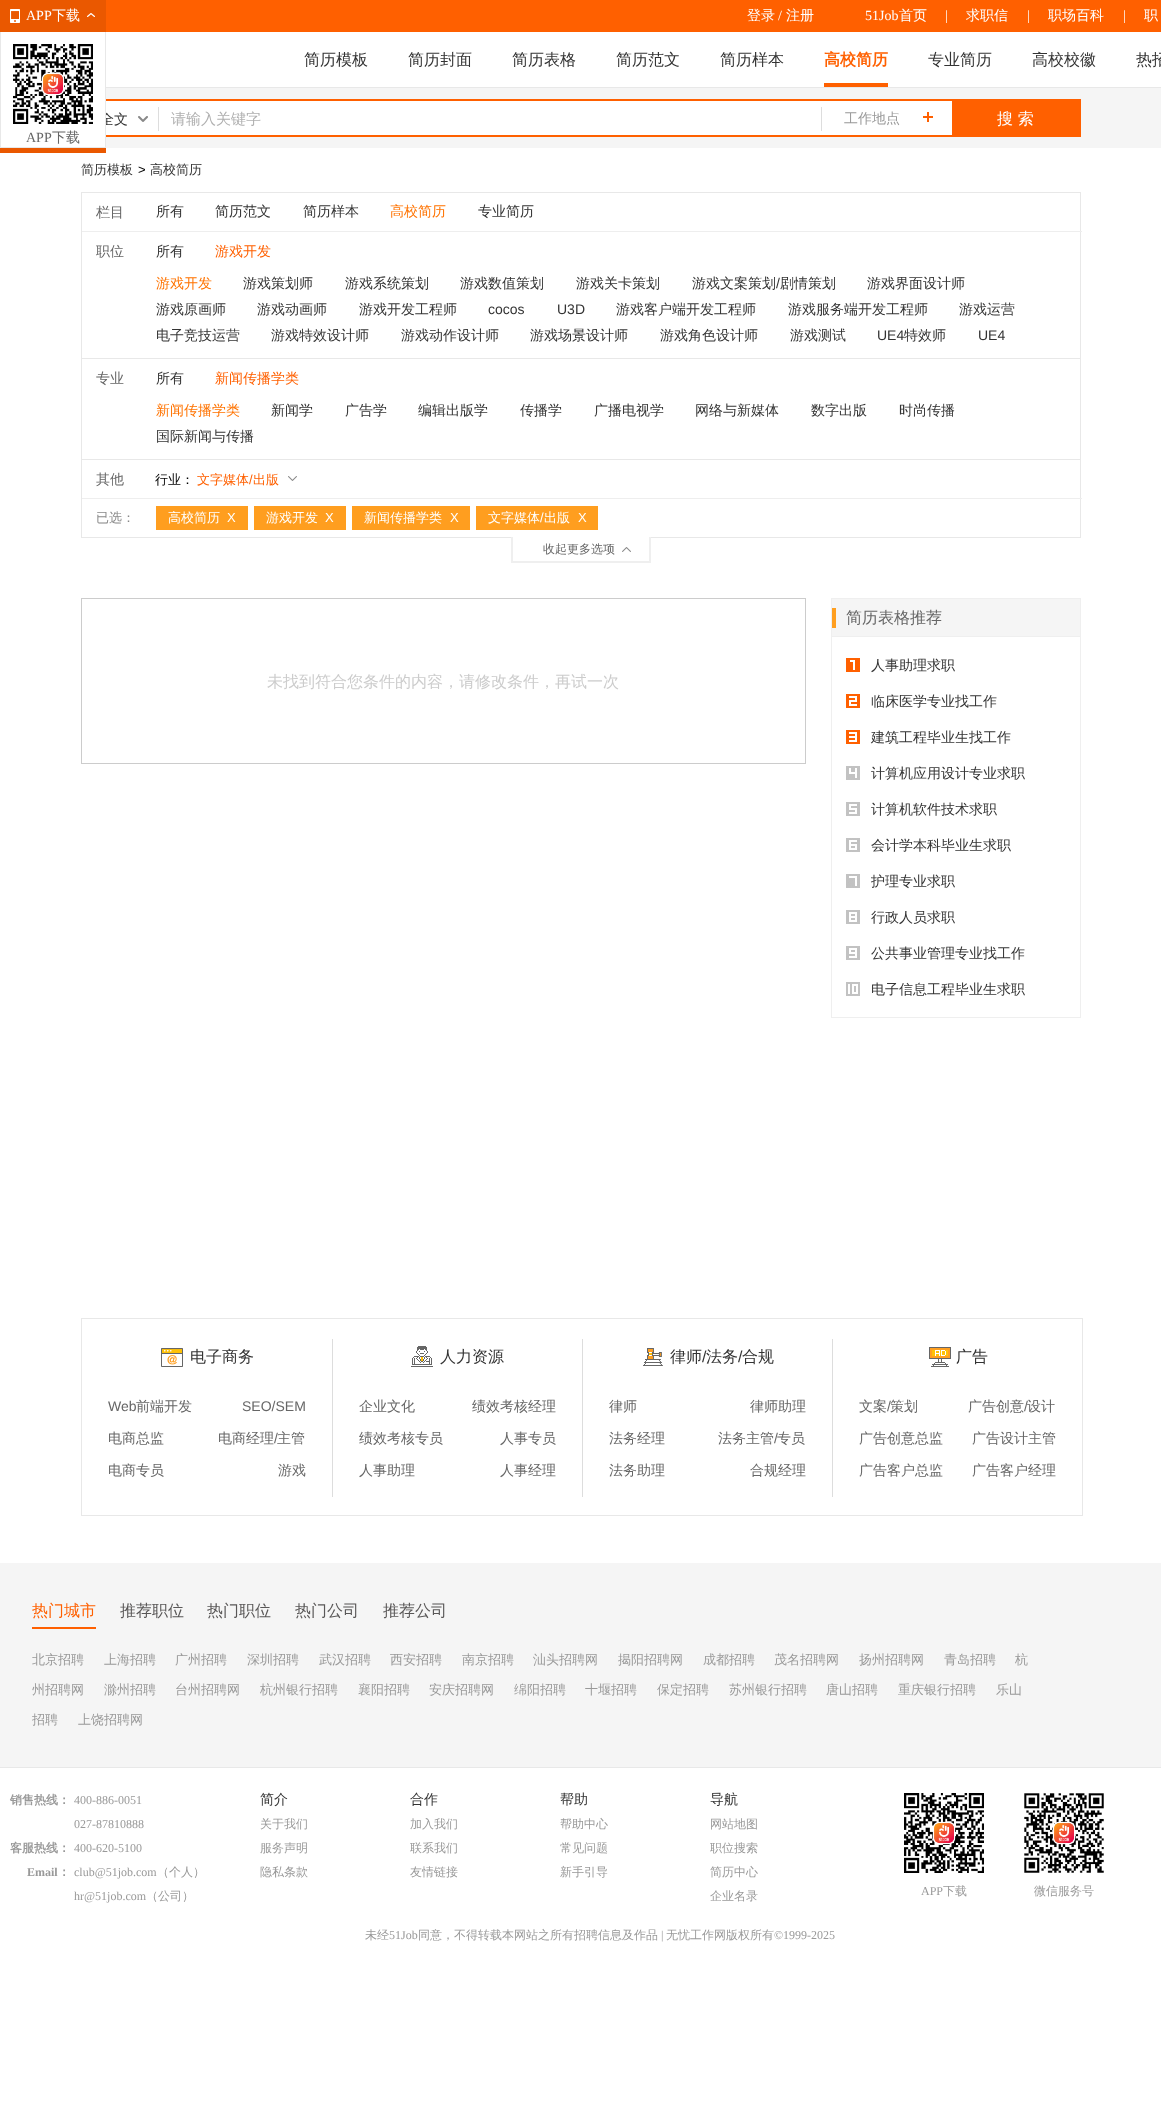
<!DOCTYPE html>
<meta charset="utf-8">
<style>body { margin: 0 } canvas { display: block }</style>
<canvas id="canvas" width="1161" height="2127"></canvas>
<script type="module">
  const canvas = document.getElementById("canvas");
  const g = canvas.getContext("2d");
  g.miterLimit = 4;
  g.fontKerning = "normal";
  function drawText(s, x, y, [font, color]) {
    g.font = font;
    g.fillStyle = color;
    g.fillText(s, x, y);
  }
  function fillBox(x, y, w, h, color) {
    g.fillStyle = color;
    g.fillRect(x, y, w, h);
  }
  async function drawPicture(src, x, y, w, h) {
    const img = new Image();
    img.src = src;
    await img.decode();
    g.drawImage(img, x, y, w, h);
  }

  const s1 = ["500 14px WenQuanYi Zen Hei", "#333333"];
  const s2 = ["14px Liberation Serif", "#FFFFFF"];
  const s3 = ["500 14px WenQuanYi Zen Hei", "#FFFFFF"];
  const s4 = ["14px Liberation Serif", "#666666"];
  const s5 = ["500 14px WenQuanYi Zen Hei", "#666666"];
  const s6 = ["500 16px WenQuanYi Zen Hei", "#333333"];
  const s7 = ["bold 16px WenQuanYi Zen Hei", "#FF6000"];
  const s8 = ["500 15px WenQuanYi Zen Hei", "#B0B0B0"];
  const s9 = ["500 14px WenQuanYi Zen Hei", "#999999"];
  const s10 = ["500 16px WenQuanYi Zen Hei", "#FFFFFF"];
  const s11 = ["500 13px WenQuanYi Zen Hei", "#333333"];
  const s12 = ["13px Liberation Sans", "#000000"];
  const s13 = ["500 14px WenQuanYi Zen Hei", "#FF7300"];
  const s14 = ["500 14px WenQuanYi Zen Hei", "#FF6000"];
  const s15 = ["14px Liberation Sans", "#333333"];
  const s16 = ["500 13px WenQuanYi Zen Hei", "#000000"];
  const s17 = ["500 13px WenQuanYi Zen Hei", "#FF6000"];
  const s18 = ["13px Liberation Sans", "#FF6000"];
  const s19 = ["500 13px WenQuanYi Zen Hei", "#888888"];
  const s20 = ["500 13px WenQuanYi Zen Hei", "#FFFFFF"];
  const s21 = ["13px Liberation Sans", "#FFFFFF"];
  const s22 = ["500 12px WenQuanYi Zen Hei", "#666666"];
  const s23 = ["500 16px WenQuanYi Zen Hei", "#CCCCCC"];
  const s24 = ["500 16px WenQuanYi Zen Hei", "#666666"];
  const s25 = ["14px Liberation Sans", "#666666"];
  const s26 = ["16px Liberation Sans", "#333333"];
  const s27 = ["500 16px WenQuanYi Zen Hei", "#FF6000"];
  const s28 = ["500 16px WenQuanYi Zen Hei", "#595757"];
  const s29 = ["500 13px WenQuanYi Zen Hei", "#999999"];
  const s30 = ["bold 12px WenQuanYi Zen Hei", "#999999"];
  const s31 = ["12px Liberation Serif", "#999999"];
  const s32 = ["bold 12px Liberation Serif", "#999999"];
  const s33 = ["500 12px WenQuanYi Zen Hei", "#999999"];

  fillBox(0, 0, 1161, 2127, "#FFFFFF");
  fillBox(106, 0, 1055, 32, "#FF6000");
  fillBox(106, 88, 1055, 60, "#F5F5F5");
  fillBox(106, 101, 846, 34, "#FFFFFF");
  g.strokeStyle = "#FF6000";
  g.lineWidth = 2;
  g.strokeRect(82, 100, 998, 36);
  drawText("全文", 100, 124, s1);
  fillBox(0, 0, 106, 153, "#EA5800");
  await drawPicture("pic1.png", 10, 9, 10, 14);
  drawText("APP", 26, 20, s2);
  drawText("下载", 52, 20, s3);
  await drawPicture("pic2.png", 87, 13, 8, 4);
  fillBox(1, 32, 104, 115, "#FFFFFF");
  fillBox(105, 32, 1, 116, "#E8E8E8");
  fillBox(0, 147, 106, 1, "#E8E8E8");
  fillBox(0, 32, 1, 116, "#E8E8E8");
  await drawPicture("pic3.png", 13, 44, 80, 80);
  drawText("APP", 26, 142, s4);
  drawText("下载", 52, 142, s5);
  drawText("登录", 747, 20, s3);
  drawText("/", 778, 20, s2);
  drawText("注册", 786, 20, s3);
  drawText("51Job", 865, 20, s2);
  drawText("首页", 899, 20, s3);
  drawText("|", 945, 20, s2);
  drawText("求职信", 966, 20, s3);
  drawText("|", 1027, 20, s2);
  drawText("职场百科", 1048, 20, s3);
  drawText("|", 1123, 20, s2);
  drawText("职", 1144, 20, s3);
  fillBox(106, 87, 1055, 1, "#E8E8E8");
  drawText("简历模板", 304, 65, s6);
  drawText("简历封面", 408, 65, s6);
  drawText("简历表格", 512, 65, s6);
  drawText("简历范文", 616, 65, s6);
  drawText("简历样本", 720, 65, s6);
  fillBox(824, 83, 64, 4, "#FF6000");
  drawText("高校简历", 824, 65, s7);
  drawText("专业简历", 928, 65, s6);
  drawText("高校校徽", 1032, 65, s6);
  drawText("热招", 1136, 65, s6);
  await drawPicture("pic4.png", 138, 116, 10, 6);
  fillBox(821, 107, 1, 24, "#DDDDDD");
  fillBox(158, 107, 1, 24, "#DDDDDD");
  drawText("请输入关键字", 171, 124, s8);
  drawText("工作地点", 844, 123, s9);
  await drawPicture("pic5.png", 923, 112, 10, 10);
  fillBox(952, 101, 127, 34, "#FF6000");
  drawText("搜 索", 997, 124, s10);
  drawText("简历模板", 81, 174, s11);
  drawText(">", 138, 174, s12);
  drawText("高校简历", 150, 174, s11);
  g.strokeStyle = "#E8E8E8";
  g.lineWidth = 1;
  g.strokeRect(81.5, 192.5, 999, 345);
  fillBox(82, 231, 1000, 1, "#EEEEEE");
  drawText("栏目", 96, 217, s5);
  drawText("所有", 156, 216, s1);
  drawText("简历范文", 215, 216, s1);
  drawText("简历样本", 303, 216, s1);
  drawText("高校简历", 390, 216, s13);
  drawText("专业简历", 478, 216, s1);
  drawText("职位", 96, 256, s5);
  drawText("所有", 156, 256, s1);
  drawText("游戏开发", 215, 256, s14);
  fillBox(82, 358, 998, 1, "#E8E8E8");
  drawText("游戏开发", 156, 288, s13);
  drawText("游戏策划师", 243, 288, s1);
  drawText("游戏系统策划", 345, 288, s1);
  drawText("游戏数值策划", 460, 288, s1);
  drawText("游戏关卡策划", 576, 288, s1);
  drawText("游戏文案策划", 692, 288, s1);
  drawText("/", 776, 288, s15);
  drawText("剧情策划", 780, 288, s1);
  drawText("游戏界面设计师", 867, 288, s1);
  drawText("游戏原画师", 156, 314, s1);
  drawText("游戏动画师", 257, 314, s1);
  drawText("游戏开发工程师", 359, 314, s1);
  drawText("cocos", 488, 314, s15);
  drawText("U3D", 557, 314, s15);
  drawText("游戏客户端开发工程师", 616, 314, s1);
  drawText("游戏服务端开发工程师", 788, 314, s1);
  drawText("游戏运营", 959, 314, s1);
  drawText("电子竞技运营", 156, 340, s1);
  drawText("游戏特效设计师", 271, 340, s1);
  drawText("游戏动作设计师", 401, 340, s1);
  drawText("游戏场景设计师", 530, 340, s1);
  drawText("游戏角色设计师", 660, 340, s1);
  drawText("游戏测试", 790, 340, s1);
  drawText("UE4", 877, 340, s15);
  drawText("特效师", 904, 340, s1);
  drawText("UE4", 978, 340, s15);
  drawText("专业", 96, 383, s5);
  drawText("所有", 156, 383, s1);
  drawText("新闻传播学类", 215, 383, s14);
  fillBox(82, 459, 998, 1, "#E8E8E8");
  drawText("新闻传播学类", 156, 415, s13);
  drawText("新闻学", 271, 415, s1);
  drawText("广告学", 345, 415, s1);
  drawText("编辑出版学", 418, 415, s1);
  drawText("传播学", 520, 415, s1);
  drawText("广播电视学", 594, 415, s1);
  drawText("网络与新媒体", 695, 415, s1);
  drawText("数字出版", 811, 415, s1);
  drawText("时尚传播", 899, 415, s1);
  drawText("国际新闻与传播", 156, 441, s1);
  fillBox(82, 498, 1000, 1, "#EEEEEE");
  drawText("其他", 96, 484, s5);
  drawText("行业：", 155, 484, s16);
  drawText("文字媒体 出版", 197, 484, s17);
  drawText("/", 249, 484, s18);
  await drawPicture("pic6.png", 288, 476, 9, 5);
  drawText("已选：", 96, 522, s19);
  fillBox(156, 506, 92, 24, "#FF9E1F");
  drawText("高校简历", 168, 522, s20);
  drawText("X", 227, 522, s21);
  fillBox(254, 506, 92, 24, "#FF9E1F");
  drawText("游戏开发", 266, 522, s20);
  drawText("X", 325, 522, s21);
  fillBox(352, 506, 118, 24, "#FF9E1F");
  drawText("新闻传播学类", 364, 522, s20);
  drawText("X", 450, 522, s21);
  fillBox(476, 506, 122, 24, "#FF9E1F");
  drawText("文字媒体 出版", 488, 522, s20);
  drawText("/", 540, 522, s21);
  drawText("X", 578, 522, s21);
  fillBox(513, 537, 136, 1, "#FFFFFF");
  fillBox(649, 537, 2, 26, "#EFEFEF");
  fillBox(511, 561, 140, 2, "#EFEFEF");
  fillBox(511, 537, 2, 26, "#EFEFEF");
  drawText("收起更多选项", 543, 553, s22);
  await drawPicture("pic7.png", 622, 547, 9, 5);
  g.strokeStyle = "#CCCCCC";
  g.strokeRect(81.5, 598.5, 724, 165);
  drawText("未找到符合您条件的内容，请修改条件，再试一次", 267, 687, s23);
  g.strokeStyle = "#EFEFEF";
  g.strokeRect(831.5, 598.5, 249, 419);
  fillBox(832, 599, 248, 37, "#F5F5F5");
  fillBox(832, 636, 248, 1, "#EFEFEF");
  fillBox(832, 608, 4, 20, "#FF9F20");
  drawText("简历表格推荐", 846, 623, s24);
  await drawPicture("pic8.png", 846, 658, 14, 14);
  drawText("人事助理求职", 871, 670, s1);
  await drawPicture("pic9.png", 846, 694, 14, 14);
  drawText("临床医学专业找工作", 871, 706, s1);
  await drawPicture("pic10.png", 846, 730, 14, 14);
  drawText("建筑工程毕业生找工作", 871, 742, s1);
  await drawPicture("pic11.png", 846, 766, 14, 14);
  drawText("计算机应用设计专业求职", 871, 778, s1);
  await drawPicture("pic12.png", 846, 802, 14, 14);
  drawText("计算机软件技术求职", 871, 814, s1);
  await drawPicture("pic13.png", 846, 838, 14, 14);
  drawText("会计学本科毕业生求职", 871, 850, s1);
  await drawPicture("pic14.png", 846, 874, 14, 14);
  drawText("护理专业求职", 871, 886, s1);
  await drawPicture("pic15.png", 846, 910, 14, 14);
  drawText("行政人员求职", 871, 922, s1);
  await drawPicture("pic16.png", 846, 946, 14, 14);
  drawText("公共事业管理专业找工作", 871, 958, s1);
  await drawPicture("pic17.png", 846, 982, 14, 14);
  drawText("电子信息工程毕业生求职", 871, 994, s1);
  g.strokeStyle = "#E8E8E8";
  g.strokeRect(81.5, 1318.5, 1001, 197);
  await drawPicture("pic18.png", 161, 1348, 22, 19);
  drawText("电子商务", 190, 1362, s6);
  drawText("Web", 108, 1411, s25);
  drawText("前端开发", 136, 1411, s5);
  drawText("SEO/SEM", 242, 1411, s25);
  drawText("电商总监", 108, 1443, s5);
  drawText("电商经理", 218, 1443, s5);
  drawText("/", 274, 1443, s25);
  drawText("主管", 277, 1443, s5);
  drawText("电商专员", 108, 1475, s5);
  drawText("游戏", 278, 1475, s5);
  fillBox(332, 1339, 1, 158, "#DDDDDD");
  await drawPicture("pic19.png", 411, 1346, 22, 21);
  drawText("人力资源", 440, 1362, s6);
  drawText("企业文化", 359, 1411, s5);
  drawText("绩效考核经理", 472, 1411, s5);
  drawText("绩效考核专员", 359, 1443, s5);
  drawText("人事专员", 500, 1443, s5);
  drawText("人事助理", 359, 1475, s5);
  drawText("人事经理", 500, 1475, s5);
  fillBox(582, 1339, 1, 158, "#DDDDDD");
  await drawPicture("pic20.png", 643, 1348, 20, 18);
  drawText("律师", 670, 1362, s6);
  drawText("/", 702, 1362, s26);
  drawText("法务", 706, 1362, s6);
  drawText("/", 738, 1362, s26);
  drawText("合规", 742, 1362, s6);
  drawText("律师", 609, 1411, s5);
  drawText("律师助理", 750, 1411, s5);
  drawText("法务经理", 609, 1443, s5);
  drawText("法务主管", 718, 1443, s5);
  drawText("/", 774, 1443, s25);
  drawText("专员", 777, 1443, s5);
  drawText("法务助理", 609, 1475, s5);
  drawText("合规经理", 750, 1475, s5);
  fillBox(832, 1339, 1, 158, "#DDDDDD");
  await drawPicture("pic21.png", 929, 1347, 22, 20);
  drawText("广告", 956, 1362, s6);
  drawText("文案", 859, 1411, s5);
  drawText("/", 887, 1411, s25);
  drawText("策划", 890, 1411, s5);
  drawText("广告创意", 968, 1411, s5);
  drawText("/", 1024, 1411, s25);
  drawText("设计", 1027, 1411, s5);
  drawText("广告创意总监", 859, 1443, s5);
  drawText("广告设计主管", 972, 1443, s5);
  drawText("广告客户总监", 859, 1475, s5);
  drawText("广告客户经理", 972, 1475, s5);
  fillBox(0, 1563, 1161, 204, "#F5F5F5");
  fillBox(32, 1627, 64, 2, "#FF6000");
  drawText("热门城市", 32, 1616, s27);
  drawText("推荐职位", 120, 1616, s28);
  drawText("热门职位", 207, 1616, s28);
  drawText("热门公司", 295, 1616, s28);
  drawText("推荐公司", 383, 1616, s28);
  drawText("北京招聘", 32, 1664, s29);
  drawText("上海招聘", 104, 1664, s29);
  drawText("广州招聘", 175, 1664, s29);
  drawText("深圳招聘", 247, 1664, s29);
  drawText("武汉招聘", 319, 1664, s29);
  drawText("西安招聘", 390, 1664, s29);
  drawText("南京招聘", 462, 1664, s29);
  drawText("汕头招聘网", 533, 1664, s29);
  drawText("揭阳招聘网", 618, 1664, s29);
  drawText("成都招聘", 703, 1664, s29);
  drawText("茂名招聘网", 774, 1664, s29);
  drawText("扬州招聘网", 859, 1664, s29);
  drawText("青岛招聘", 944, 1664, s29);
  drawText("杭", 1015, 1664, s29);
  drawText("州招聘网", 32, 1694, s29);
  drawText("滁州招聘", 104, 1694, s29);
  drawText("台州招聘网", 175, 1694, s29);
  drawText("杭州银行招聘", 260, 1694, s29);
  drawText("襄阳招聘", 358, 1694, s29);
  drawText("安庆招聘网", 429, 1694, s29);
  drawText("绵阳招聘", 514, 1694, s29);
  drawText("十堰招聘", 585, 1694, s29);
  drawText("保定招聘", 657, 1694, s29);
  drawText("苏州银行招聘", 729, 1694, s29);
  drawText("唐山招聘", 826, 1694, s29);
  drawText("重庆银行招聘", 898, 1694, s29);
  drawText("乐山", 996, 1694, s29);
  drawText("招聘", 32, 1724, s29);
  drawText("上饶招聘网", 78, 1724, s29);
  fillBox(0, 1767, 1161, 1, "#E8E8E8");
  drawText("销售热线：", 10, 1804, s30);
  drawText("400-886-0051", 74, 1804, s31);
  drawText("027-87810888", 74, 1828, s31);
  drawText("客服热线：", 10, 1852, s30);
  drawText("400-620-5100", 74, 1852, s31);
  drawText("Email", 27, 1876, s32);
  drawText("：", 58, 1876, s30);
  drawText("club@51job.com", 74, 1876, s31);
  drawText("（个人）", 157, 1876, s33);
  drawText("hr@51job.com", 74, 1900, s31);
  drawText("（公司）", 146, 1900, s33);
  drawText("简介", 260, 1804, s1);
  drawText("关于我们", 260, 1828, s33);
  drawText("服务声明", 260, 1852, s33);
  drawText("隐私条款", 260, 1876, s33);
  drawText("合作", 410, 1804, s1);
  drawText("加入我们", 410, 1828, s33);
  drawText("联系我们", 410, 1852, s33);
  drawText("友情链接", 410, 1876, s33);
  drawText("帮助", 560, 1804, s1);
  drawText("帮助中心", 560, 1828, s33);
  drawText("常见问题", 560, 1852, s33);
  drawText("新手引导", 560, 1876, s33);
  drawText("导航", 710, 1804, s1);
  drawText("网站地图", 710, 1828, s33);
  drawText("职位搜索", 710, 1852, s33);
  drawText("简历中心", 710, 1876, s33);
  drawText("企业名录", 710, 1900, s33);
  await drawPicture("pic22.png", 904, 1793, 80, 80);
  drawText("APP", 921, 1895, s31);
  drawText("下载", 943, 1895, s33);
  await drawPicture("pic23.png", 1024, 1793, 80, 80);
  drawText("微信服务号", 1034, 1895, s33);
  drawText("未经", 365, 1939, s33);
  drawText("51Job", 389, 1939, s31);
  drawText("同意，不得转载本网站之所有招聘信息及作品", 418, 1939, s33);
  drawText("|", 661, 1939, s31);
  drawText("无忧工作网版权所有", 666, 1939, s33);
  drawText("©1999-2025", 774, 1939, s31);
</script>
